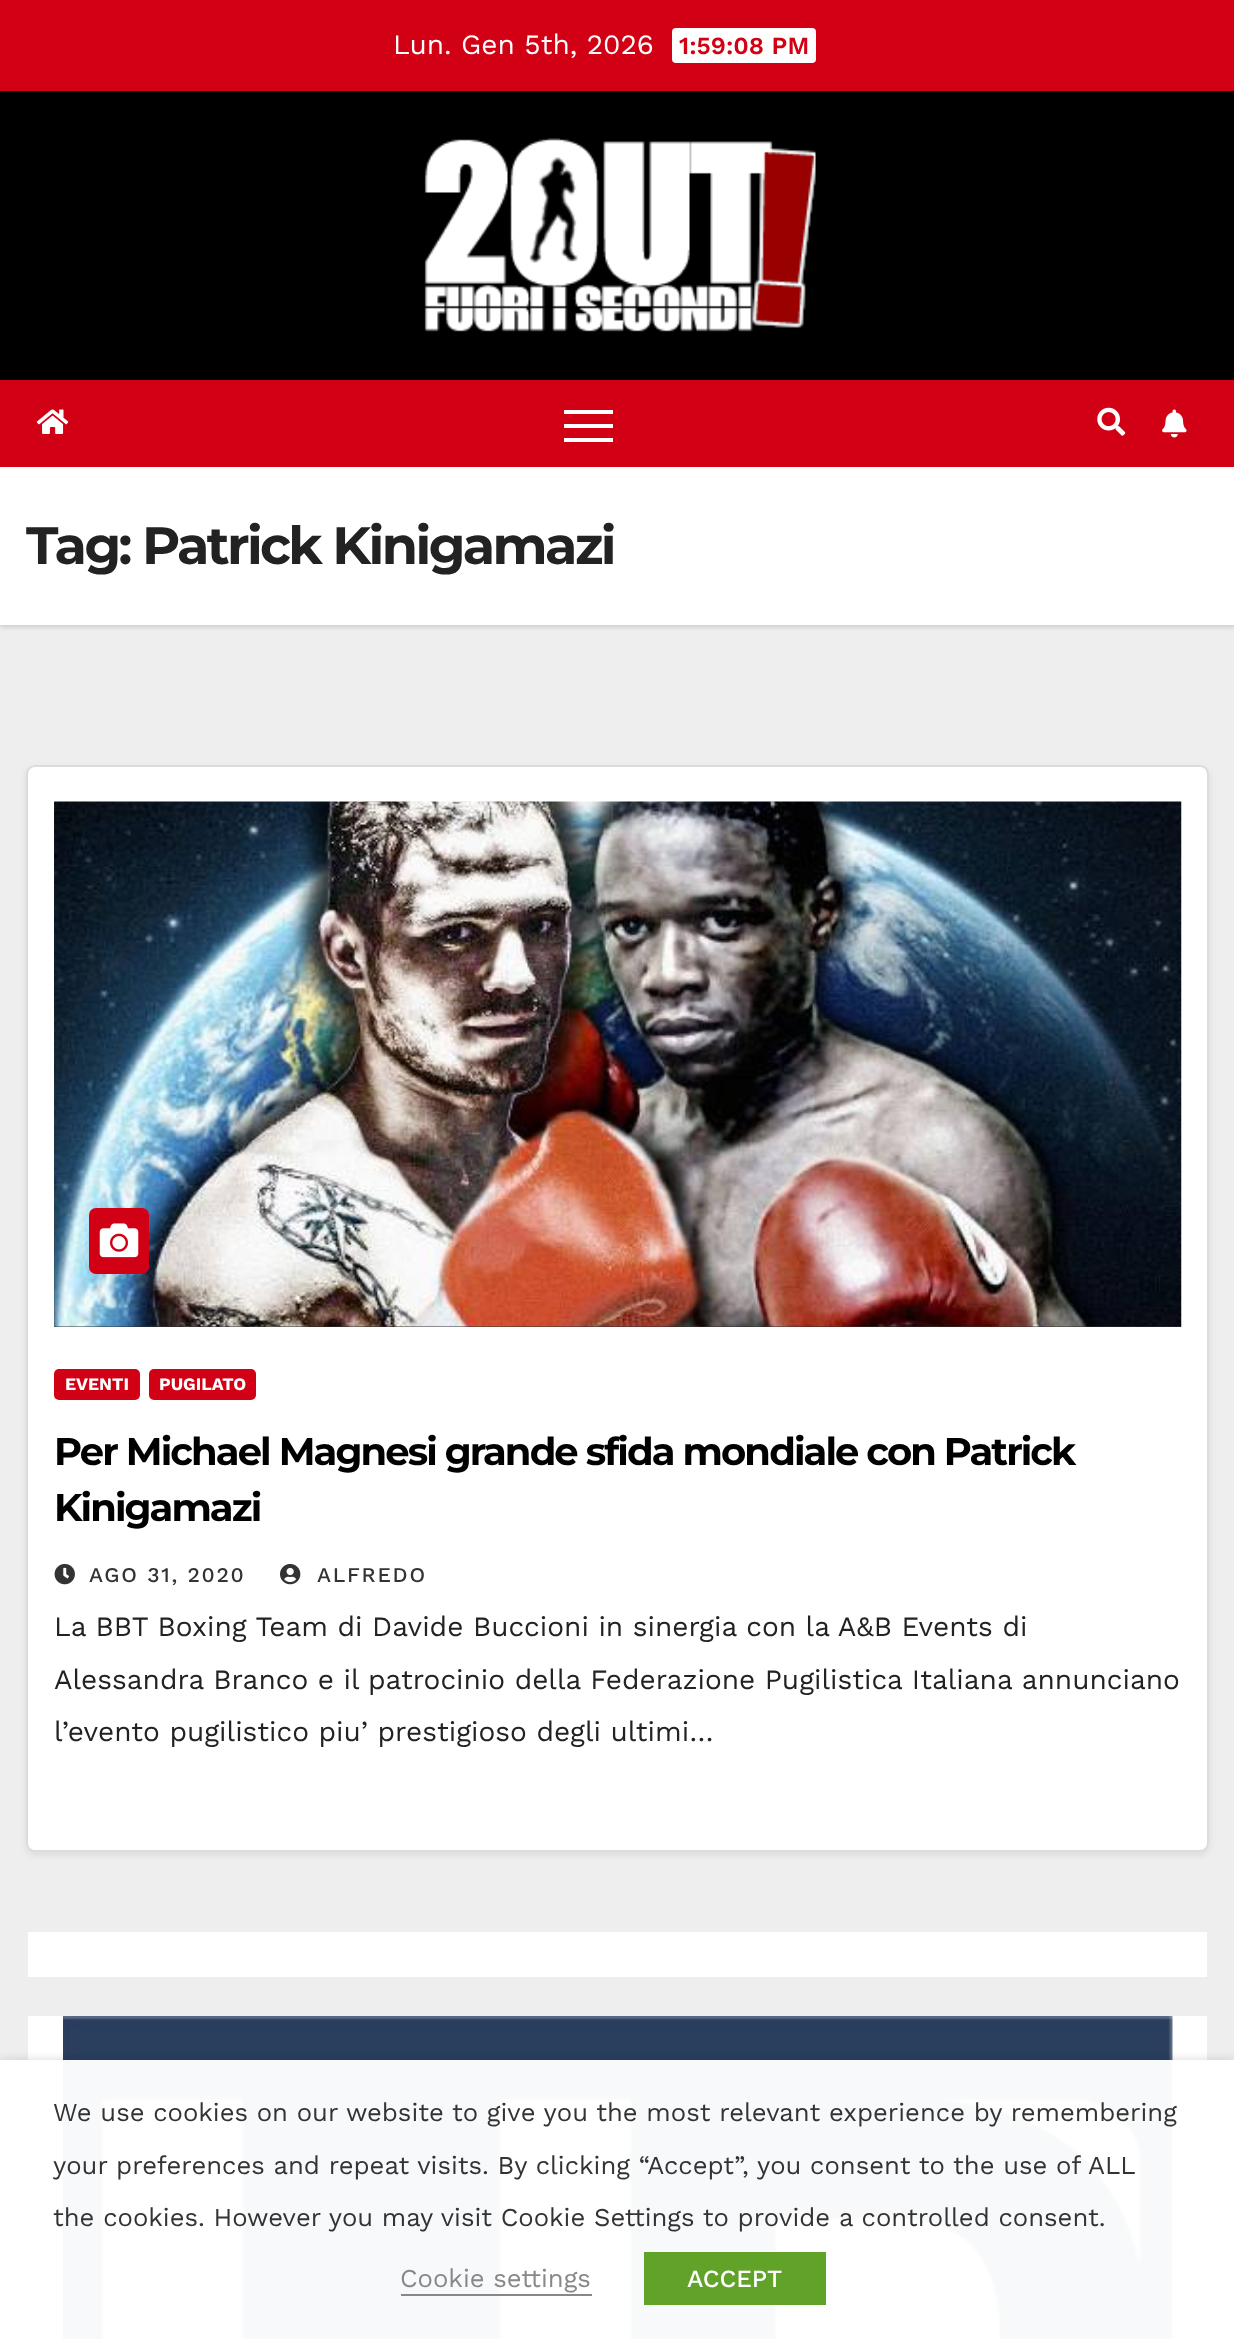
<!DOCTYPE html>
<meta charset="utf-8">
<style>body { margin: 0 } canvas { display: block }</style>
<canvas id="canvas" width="1234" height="2339"></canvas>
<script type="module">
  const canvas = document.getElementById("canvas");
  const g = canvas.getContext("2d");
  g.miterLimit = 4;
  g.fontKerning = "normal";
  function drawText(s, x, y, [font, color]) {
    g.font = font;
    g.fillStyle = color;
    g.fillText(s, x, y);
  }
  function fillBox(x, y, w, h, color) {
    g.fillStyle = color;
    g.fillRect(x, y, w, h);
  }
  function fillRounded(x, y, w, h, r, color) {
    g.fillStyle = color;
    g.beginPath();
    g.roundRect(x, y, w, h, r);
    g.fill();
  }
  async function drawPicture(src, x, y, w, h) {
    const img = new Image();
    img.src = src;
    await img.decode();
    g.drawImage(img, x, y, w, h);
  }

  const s1 = ["28px Work Sans", "#FFFFFF"];
  const s2 = ["600 24.5px Work Sans", "#D10014"];
  const s3 = ["bold 52.5px Montserrat", "#222222"];
  const s4 = ["bold 17.5px Work Sans", "#FFFFFF"];
  const s5 = ["bold 38.5px Montserrat", "#000000"];
  const s6 = ["500 21px Work Sans", "#333333"];
  const s7 = ["28px Work Sans", "#222222"];
  const s8 = ["25.65px Work Sans", "#333333"];
  const s9 = ["25.65px Work Sans", "#898888"];
  const s10 = ["500 24.5px Work Sans", "#FFFFFF"];

  fillBox(0, 0, 1234, 2339, "#EEEEEE");
  fillBox(0, 0, 1234, 91, "#D10014");
  drawText("Lun. Gen 5th, 2026", 393, 54, s1);
  fillRounded(672, 28, 144, 35, 4, "#FFFFFF");
  drawText("1:59:08 PM", 679, 54, s2);
  fillBox(0, 91, 1234, 289, "#000000");
  await drawPicture("pic1.png", 424, 138, 392, 194);
  g.fillStyle = "rgba(0, 0, 0, 0.15)";
  g.filter = "blur(2.5px)";
  g.beginPath();
  g.rect(0, 469, 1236, 158);
  g.fill();
  g.filter = "none";
  fillBox(0, 380, 1234, 87, "#D10014");
  await drawPicture("pic2.png", 36, 409, 33, 25);
  fillBox(564, 410, 49, 4, "#FFFFFF");
  fillBox(564, 424, 49, 4, "#FFFFFF");
  fillBox(564, 438, 49, 4, "#FFFFFF");
  await drawPicture("pic3.png", 1097, 407, 29, 29);
  await drawPicture("pic4.png", 1162, 409, 25, 29);
  fillBox(0, 467, 1234, 158, "#FFFFFF");
  g.letterSpacing = "-2.6px";
  drawText("Tag: Patrick Kinigamazi", 26, 564, s3);
  g.fillStyle = "rgba(0, 0, 0, 0.08)";
  g.filter = "blur(3.5px)";
  g.beginPath();
  g.roundRect(26, 768, 1183, 1087, 9);
  g.fill();
  g.filter = "none";
  g.fillStyle = "#FFFFFF";
  g.beginPath();
  g.roundRect(27, 766, 1181, 1085, 8);
  g.fill();
  g.strokeStyle = "#DDDCDC";
  g.lineWidth = 2;
  g.stroke();
  fillBox(54, 802, 1127, 525, "#333333");
  await drawPicture("pic5.png", 54, 801, 1128, 526);
  fillRounded(89, 1208, 60, 66, 7, "#D10014");
  await drawPicture("pic6.png", 99, 1223, 40, 35);
  fillRounded(54, 1369, 86, 31, 5, "#D10014");
  g.letterSpacing = "0px";
  drawText("EVENTI", 65, 1390, s4);
  fillRounded(149, 1369, 107, 31, 5, "#D10014");
  drawText("PUGILATO", 159, 1390, s4);
  g.letterSpacing = "-1.93px";
  drawText("Per Michael Magnesi grande sfida mondiale con Patrick", 54, 1465, s5);
  drawText("Kinigamazi", 54, 1521, s5);
  await drawPicture("pic7.png", 54, 1564, 21, 21);
  g.letterSpacing = "1.75px";
  drawText("AGO 31, 2020", 89, 1582, s6);
  await drawPicture("pic8.png", 280, 1564, 21, 21);
  drawText("ALFREDO", 317, 1582, s6);
  g.letterSpacing = "0px";
  drawText("La BBT Boxing Team di Davide Buccioni in sinergia con la A&B Events di", 54, 1636, s7);
  drawText("Alessandra Branco e il patrocinio della Federazione Pugilistica Italiana annunciano", 54, 1689, s7);
  drawText("l’evento pugilistico piu’ prestigioso degli ultimi…", 54, 1741, s7);
  fillBox(28, 1932, 1179, 45, "#FFFFFF");
  fillBox(28, 2016, 1179, 323, "#FFFFFF");
  await drawPicture("pic9.png", 63, 2016, 1110, 323);
  g.save();
  g.beginPath();
  g.rect(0, 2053, 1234, 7);
  g.clip();
  g.fillStyle = "rgba(0, 0, 0, 0.5)";
  g.filter = "blur(9px)";
  g.beginPath();
  g.rect(0, 2069, 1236, 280);
  g.fill();
  g.filter = "none";
  g.restore();
  fillBox(0, 2060, 1234, 279, "rgba(255, 255, 255, 0.97)");
  drawText("We use cookies on our website to give you the most relevant experience by remembering", 53, 2121, s8);
  drawText("your preferences and repeat visits. By clicking “Accept”, you consent to the use of ALL", 53, 2174, s8);
  drawText("the cookies. However you may visit Cookie Settings to provide a controlled consent.", 53, 2226, s8);
  drawText("Cookie settings", 400, 2287, s9);
  fillBox(401, 2294, 191, 2, "#898888");
  fillBox(644, 2252, 182, 53, "#61A229");
  drawText("ACCEPT", 687, 2287, s10);
</script>
